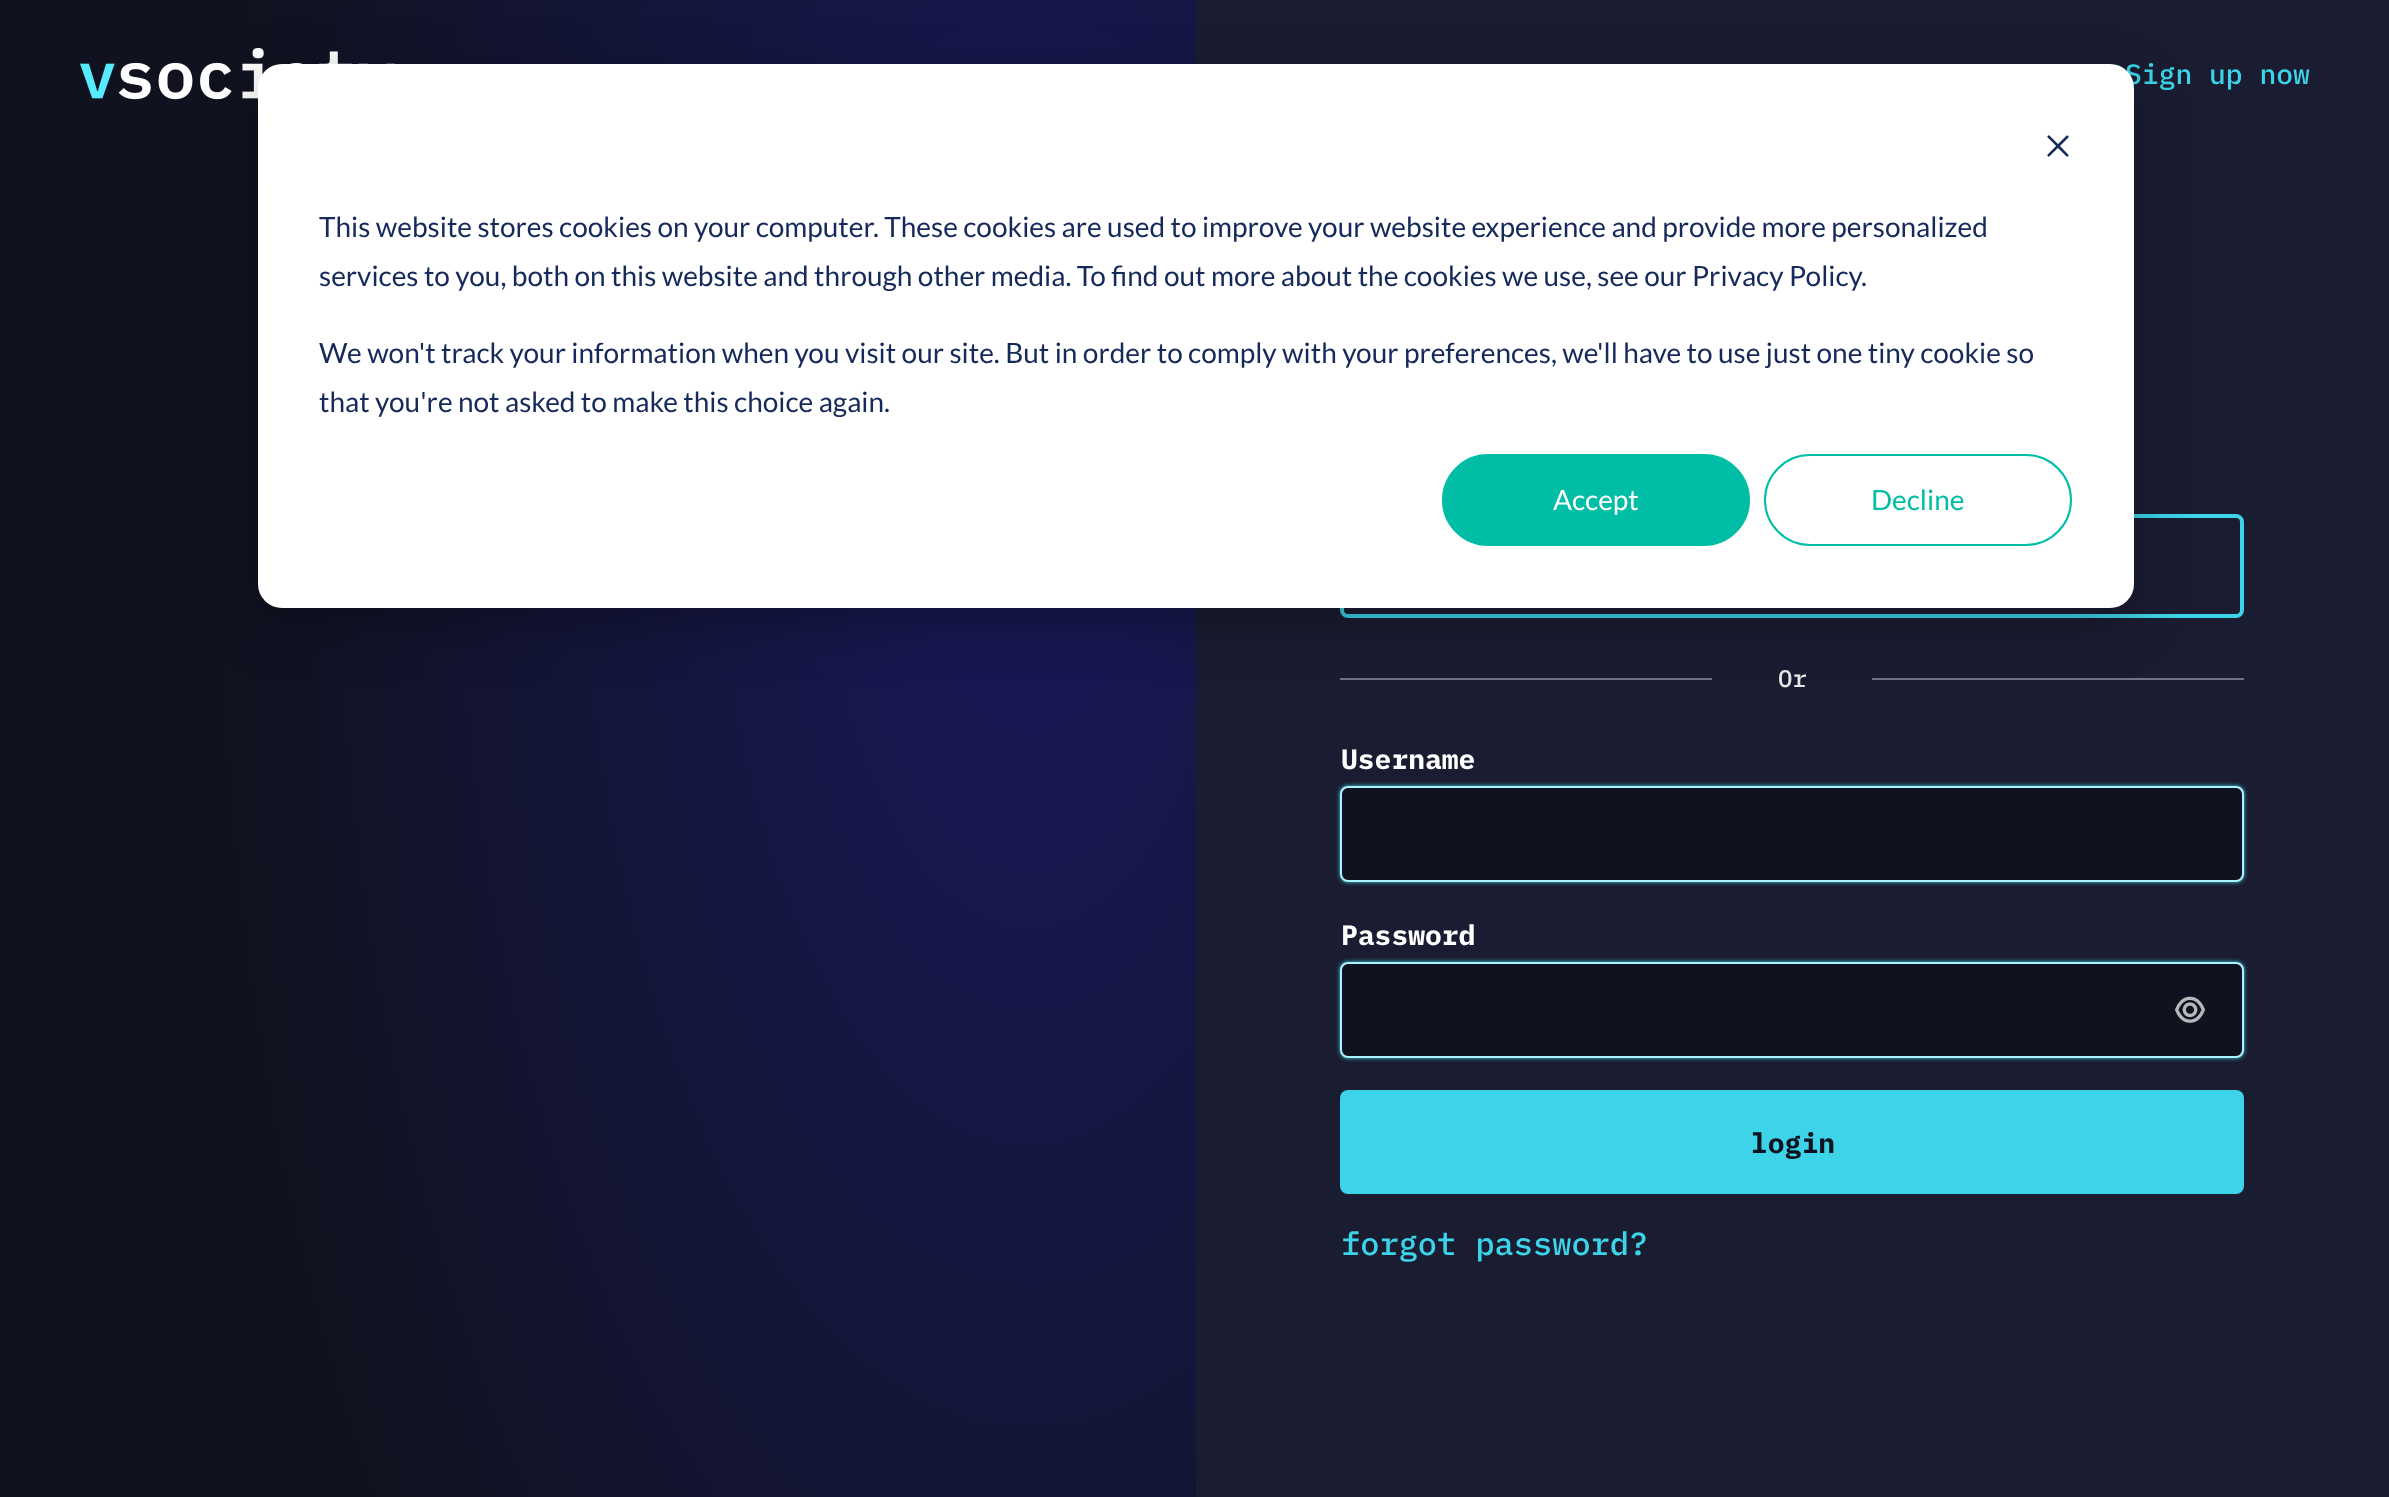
<!DOCTYPE html>
<meta charset="utf-8">
<style>body { margin: 0 } canvas { display: block }</style>
<canvas id="canvas" width="2389" height="1497"></canvas>
<script type="module">
  const canvas = document.getElementById("canvas");
  const g = canvas.getContext("2d");
  g.miterLimit = 4;
  g.fontKerning = "normal";
  function drawText(s, x, y, [font, color]) {
    g.font = font;
    g.fillStyle = color;
    g.fillText(s, x, y);
  }
  function fillBox(x, y, w, h, color) {
    g.fillStyle = color;
    g.fillRect(x, y, w, h);
  }
  function fillRounded(x, y, w, h, r, color) {
    g.fillStyle = color;
    g.beginPath();
    g.roundRect(x, y, w, h, r);
    g.fill();
  }
  async function drawPicture(src, x, y, w, h) {
    const img = new Image();
    img.src = src;
    await img.decode();
    g.drawImage(img, x, y, w, h);
  }
  let gradient;

  const s1 = ["500 28px IBM Plex Mono", "#3DD3E8"];
  const s2 = ["500 24px IBM Plex Mono", "#E8E8E8"];
  const s3 = ["bold 28px IBM Plex Mono", "#FFFFFF"];
  const s4 = ["bold 28px IBM Plex Mono", "#10121F"];
  const s5 = ["500 32px IBM Plex Mono", "#3DD3E8"];
  const s6 = ["28px Lato", "#15295A"];
  const s7 = ["28px Lato", "#FFFFFF"];
  const s8 = ["28px Lato", "#00BDA5"];

  fillBox(0, 0, 2389, 1497, "#1A1D31");
  gradient = g.createRadialGradient(1029, 229.38, 0, 1029, 229.38, 809);
  gradient.addColorStop(0.14, "#171851");
  gradient.addColorStop(1, "#10121F");
  g.fillStyle = gradient;
  g.beginPath();
  g.rect(0, 0, 1196, 1497);
  g.save();
  g.clip();
  g.scale(1, 1707 / 809);
  g.fillRect(0, 0, 2389, 710);
  g.restore();
  await drawPicture("pic1.png", 80, 48, 315, 52);
  drawText("Sign up now", 2125, 84, s1);
  g.beginPath();
  g.roundRect(1342, 516, 900, 100, 6);
  g.strokeStyle = "#3DD3E8";
  g.lineWidth = 4;
  g.stroke();
  fillBox(1340, 678, 372, 2, "#717385");
  drawText("Or", 1778, 687, s2);
  fillBox(1872, 678, 372, 2, "#717385");
  drawText("Username", 1341, 769, s3);
  g.fillStyle = "#3DD3E8";
  g.filter = "blur(2px)";
  g.beginPath();
  g.roundRect(1340, 786, 904, 96, 8);
  g.fill();
  g.filter = "none";
  g.fillStyle = "#10121F";
  g.beginPath();
  g.roundRect(1341, 787, 902, 94, 7);
  g.fill();
  g.strokeStyle = "#A9F5FF";
  g.lineWidth = 2;
  g.stroke();
  drawText("Password", 1341, 945, s3);
  g.fillStyle = "#3DD3E8";
  g.filter = "blur(2px)";
  g.beginPath();
  g.roundRect(1340, 962, 904, 96, 8);
  g.fill();
  g.filter = "none";
  g.fillStyle = "#10121F";
  g.beginPath();
  g.roundRect(1341, 963, 902, 94, 7);
  g.fill();
  g.stroke();
  await drawPicture("pic2.png", 2175, 996, 30, 27);
  fillRounded(1340, 1090, 904, 104, 8, "#3DD3E8");
  drawText("login", 1751, 1153, s4);
  drawText("forgot password?", 1341, 1255, s5);
  g.fillStyle = "rgba(0, 0, 0, 0.28)";
  g.filter = "blur(28px)";
  g.beginPath();
  g.roundRect(258, 80, 1876, 544, 24);
  g.fill();
  g.filter = "none";
  fillRounded(258, 64, 1876, 544, 24, "#FFFFFF");
  await drawPicture("pic3.png", 2047, 135, 22, 22);
  drawText("This website stores cookies on your computer. These cookies are used to improve your website experience and provide more personalized", 319, 237, s6);
  drawText("services to you, both on this website and through other media. To find out more about the cookies we use, see our Privacy Policy.", 319, 286, s6);
  drawText("We won't track your information when you visit our site. But in order to comply with your preferences, we'll have to use just one tiny cookie so", 319, 363, s6);
  drawText("that you're not asked to make this choice again.", 319, 412, s6);
  g.fillStyle = "#00BDA5";
  g.beginPath();
  g.roundRect(1443, 455, 306, 90, 45);
  g.fill();
  g.strokeStyle = "#00BDA5";
  g.stroke();
  drawText("Accept", 1553, 510, s7);
  g.beginPath();
  g.roundRect(1765, 455, 306, 90, 45);
  g.stroke();
  drawText("Decline", 1871, 510, s8);
</script>
